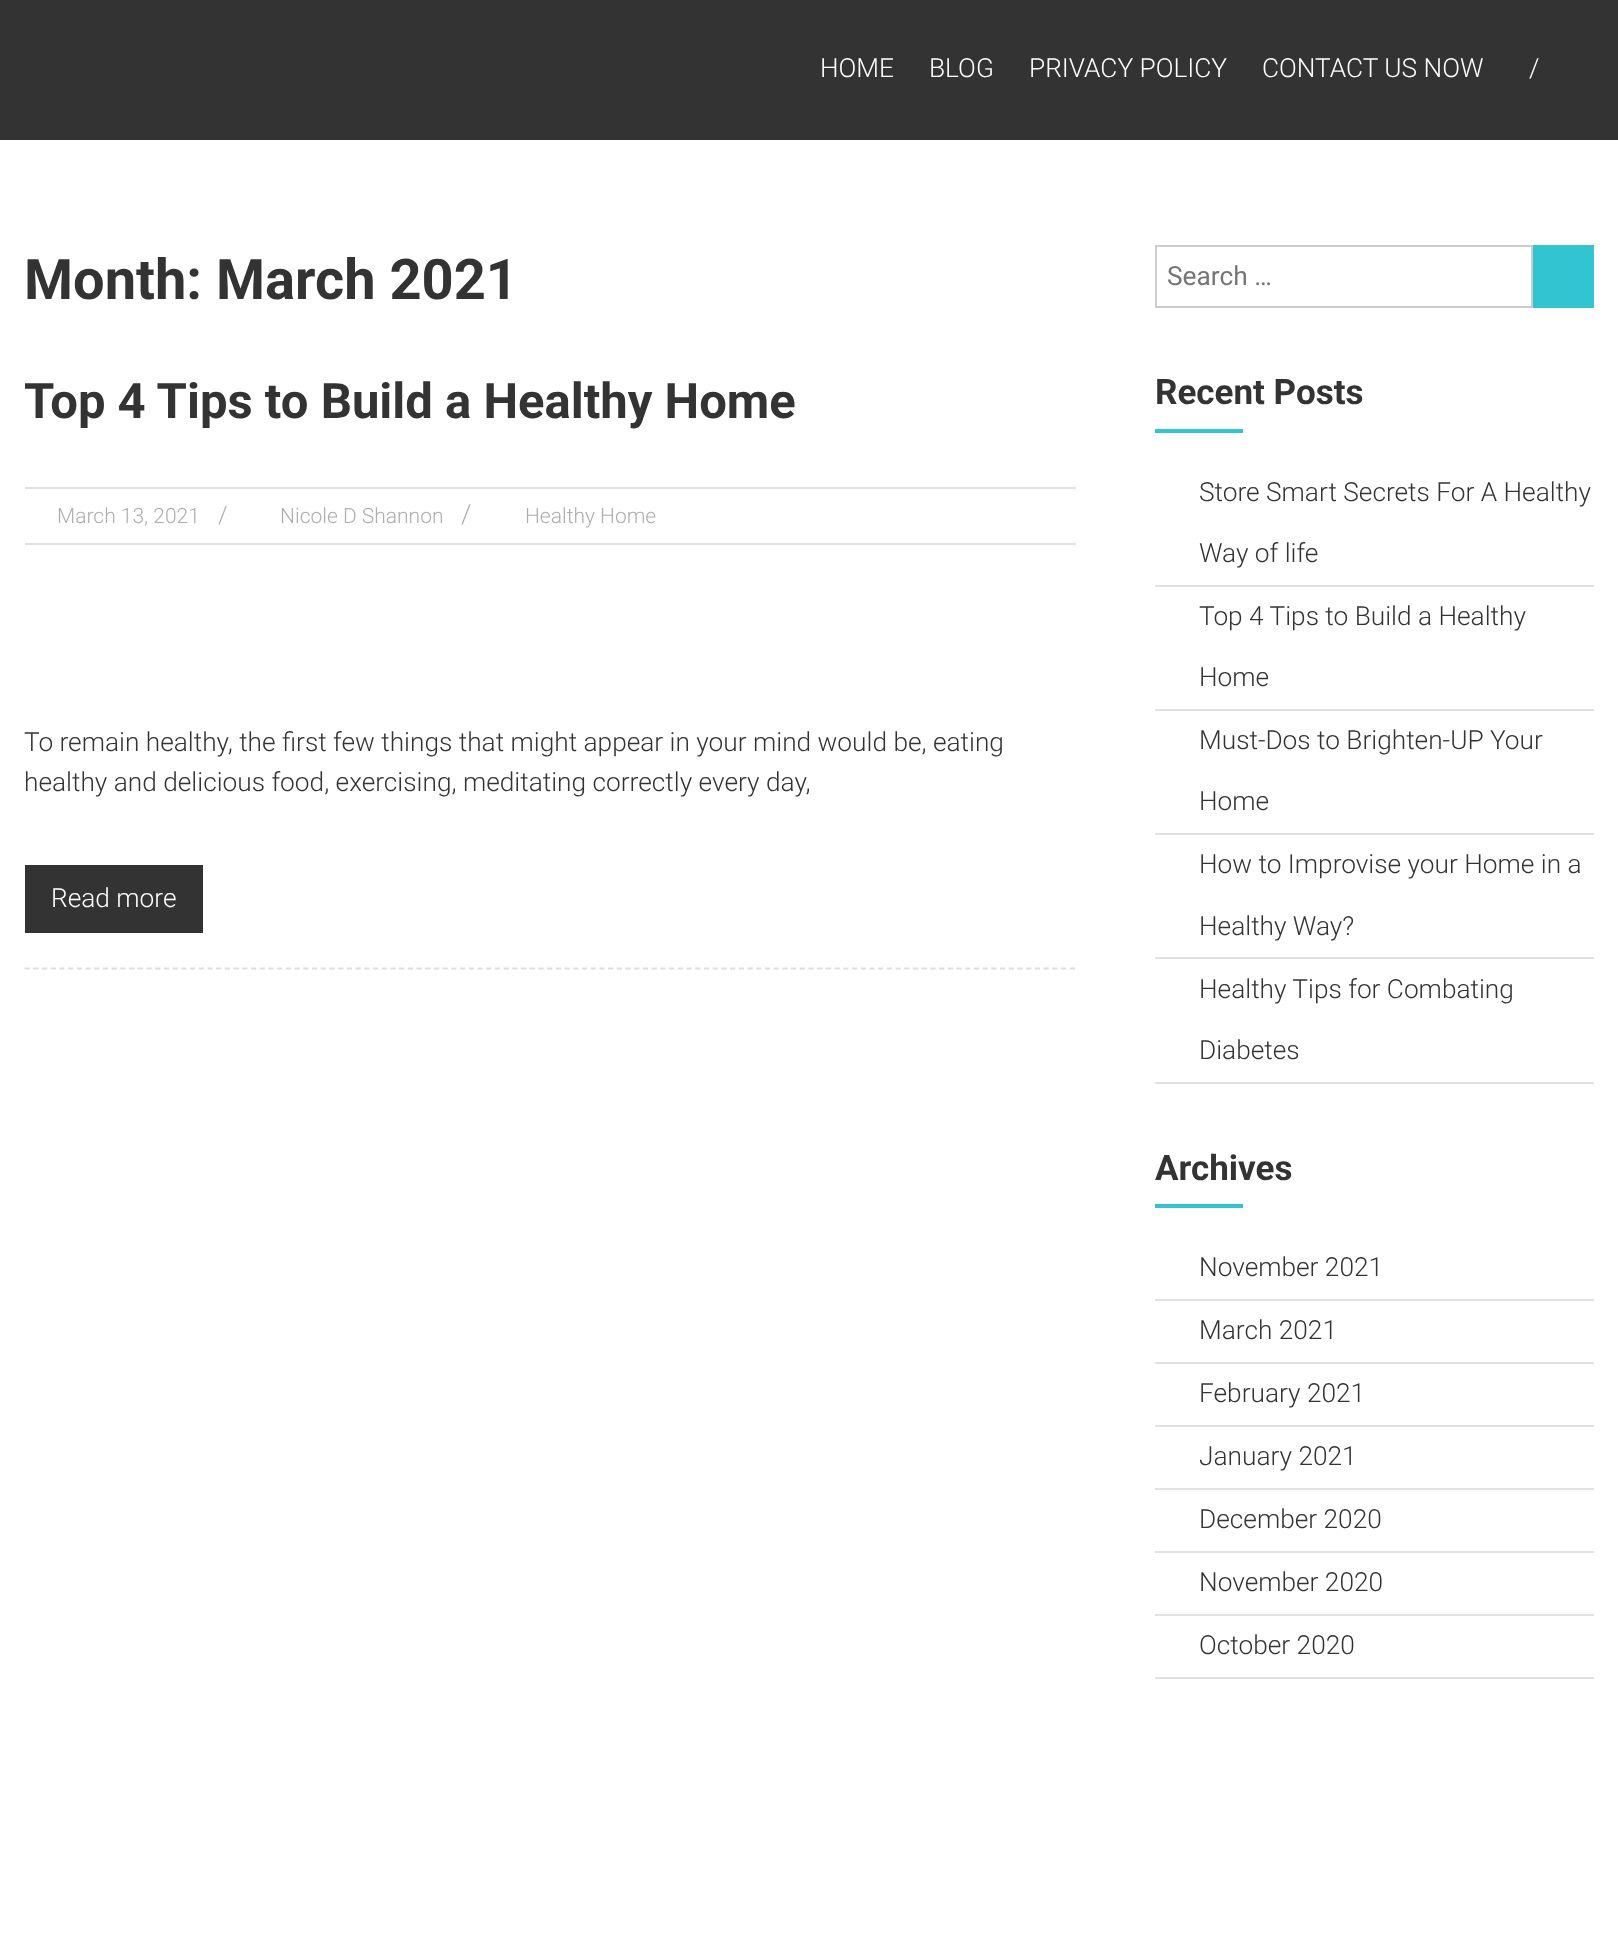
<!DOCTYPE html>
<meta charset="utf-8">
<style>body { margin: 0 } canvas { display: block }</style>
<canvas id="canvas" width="1618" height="1934"></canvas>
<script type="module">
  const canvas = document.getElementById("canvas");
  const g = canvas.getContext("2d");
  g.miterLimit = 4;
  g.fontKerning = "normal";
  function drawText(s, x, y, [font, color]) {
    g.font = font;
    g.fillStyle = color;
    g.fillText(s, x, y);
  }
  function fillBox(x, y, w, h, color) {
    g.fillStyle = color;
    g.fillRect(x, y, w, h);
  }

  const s1 = ["300 26.25px Roboto", "#FFFFFF"];
  const s2 = ["bold 56px Roboto", "#333333"];
  const s3 = ["bold 49px Roboto", "#333333"];
  const s4 = ["300 21px Roboto", "#AEAEAE"];
  const s5 = ["300 24px Roboto", "#AEAEAE"];
  const s6 = ["300 26.25px Roboto", "#AEAEAE"];
  const s7 = ["300 26.25px Roboto", "#333333"];
  const s8 = ["26.25px Roboto", "#757575"];
  const s9 = ["bold 35px Roboto", "#333333"];

  fillBox(0, 0, 1618, 1934, "#FFFFFF");
  fillBox(0, 0, 1618, 140, "#333333");
  drawText("HOME", 820, 77, s1);
  drawText("BLOG", 929, 77, s1);
  drawText("PRIVACY POLICY", 1029, 77, s1);
  drawText("CONTACT US NOW", 1262, 77, s1);
  drawText("/", 1529, 77, s1);
  drawText("Month: March 2021", 24, 299, s2);
  g.beginPath();
  g.moveTo(24.5, 968.5);
  g.lineTo(1076, 968.5);
  g.strokeStyle = "#DDDDDD";
  g.lineWidth = 1.8;
  g.setLineDash([5.25, 3.46]);
  g.stroke();
  drawText("Top 4 Tips to Build a Healthy Home", 24, 418, s3);
  fillBox(25, 487, 1051, 2, "#E1E1E1");
  fillBox(25, 543, 1051, 2, "#E1E1E1");
  drawText("March 13, 2021", 57, 523, s4);
  drawText("/", 218, 523, s5);
  drawText("Nicole D Shannon", 280, 523, s4);
  drawText("/", 461, 523, s6);
  drawText("Healthy Home", 525, 523, s4);
  drawText("To remain healthy, the first few things that might appear in your mind would be, eating", 24, 751, s7);
  drawText("healthy and delicious food, exercising, meditating correctly every day,", 24, 791, s7);
  fillBox(25, 865, 178, 68, "#333333");
  drawText("Read more", 51, 907, s1);
  g.strokeStyle = "#CCCCCC";
  g.lineWidth = 2;
  g.setLineDash([]);
  g.strokeRect(1156, 246, 376, 61);
  drawText("Search …", 1167, 285, s8);
  fillBox(1533, 245, 61, 63, "#32C4D1");
  drawText("Recent Posts", 1155, 404, s9);
  fillBox(1155, 429, 88, 4, "#32C4D1");
  fillBox(1155, 585, 439, 2, "#E1E1E1");
  drawText("Store Smart Secrets For A Healthy", 1199, 501, s7);
  drawText("Way of life", 1199, 562, s7);
  fillBox(1155, 709, 439, 2, "#E1E1E1");
  drawText("Top 4 Tips to Build a Healthy", 1199, 625, s7);
  drawText("Home", 1199, 686, s7);
  fillBox(1155, 833, 439, 2, "#E1E1E1");
  drawText("Must-Dos to Brighten-UP Your", 1199, 749, s7);
  drawText("Home", 1199, 810, s7);
  fillBox(1155, 957, 439, 2, "#E1E1E1");
  drawText("How to Improvise your Home in a", 1199, 873, s7);
  drawText("Healthy Way?", 1199, 935, s7);
  fillBox(1155, 1082, 439, 2, "#E1E1E1");
  drawText("Healthy Tips for Combating", 1199, 998, s7);
  drawText("Diabetes", 1199, 1059, s7);
  drawText("Archives", 1155, 1180, s9);
  fillBox(1155, 1204, 88, 4, "#32C4D1");
  fillBox(1155, 1299, 439, 2, "#E1E1E1");
  drawText("November 2021", 1199, 1276, s7);
  fillBox(1155, 1362, 439, 2, "#E1E1E1");
  drawText("March 2021", 1199, 1339, s7);
  fillBox(1155, 1425, 439, 2, "#E1E1E1");
  drawText("February 2021", 1199, 1402, s7);
  fillBox(1155, 1488, 439, 2, "#E1E1E1");
  drawText("January 2021", 1199, 1465, s7);
  fillBox(1155, 1551, 439, 2, "#E1E1E1");
  drawText("December 2020", 1199, 1528, s7);
  fillBox(1155, 1614, 439, 2, "#E1E1E1");
  drawText("November 2020", 1199, 1591, s7);
  fillBox(1155, 1677, 439, 2, "#E1E1E1");
  drawText("October 2020", 1199, 1654, s7);
</script>
